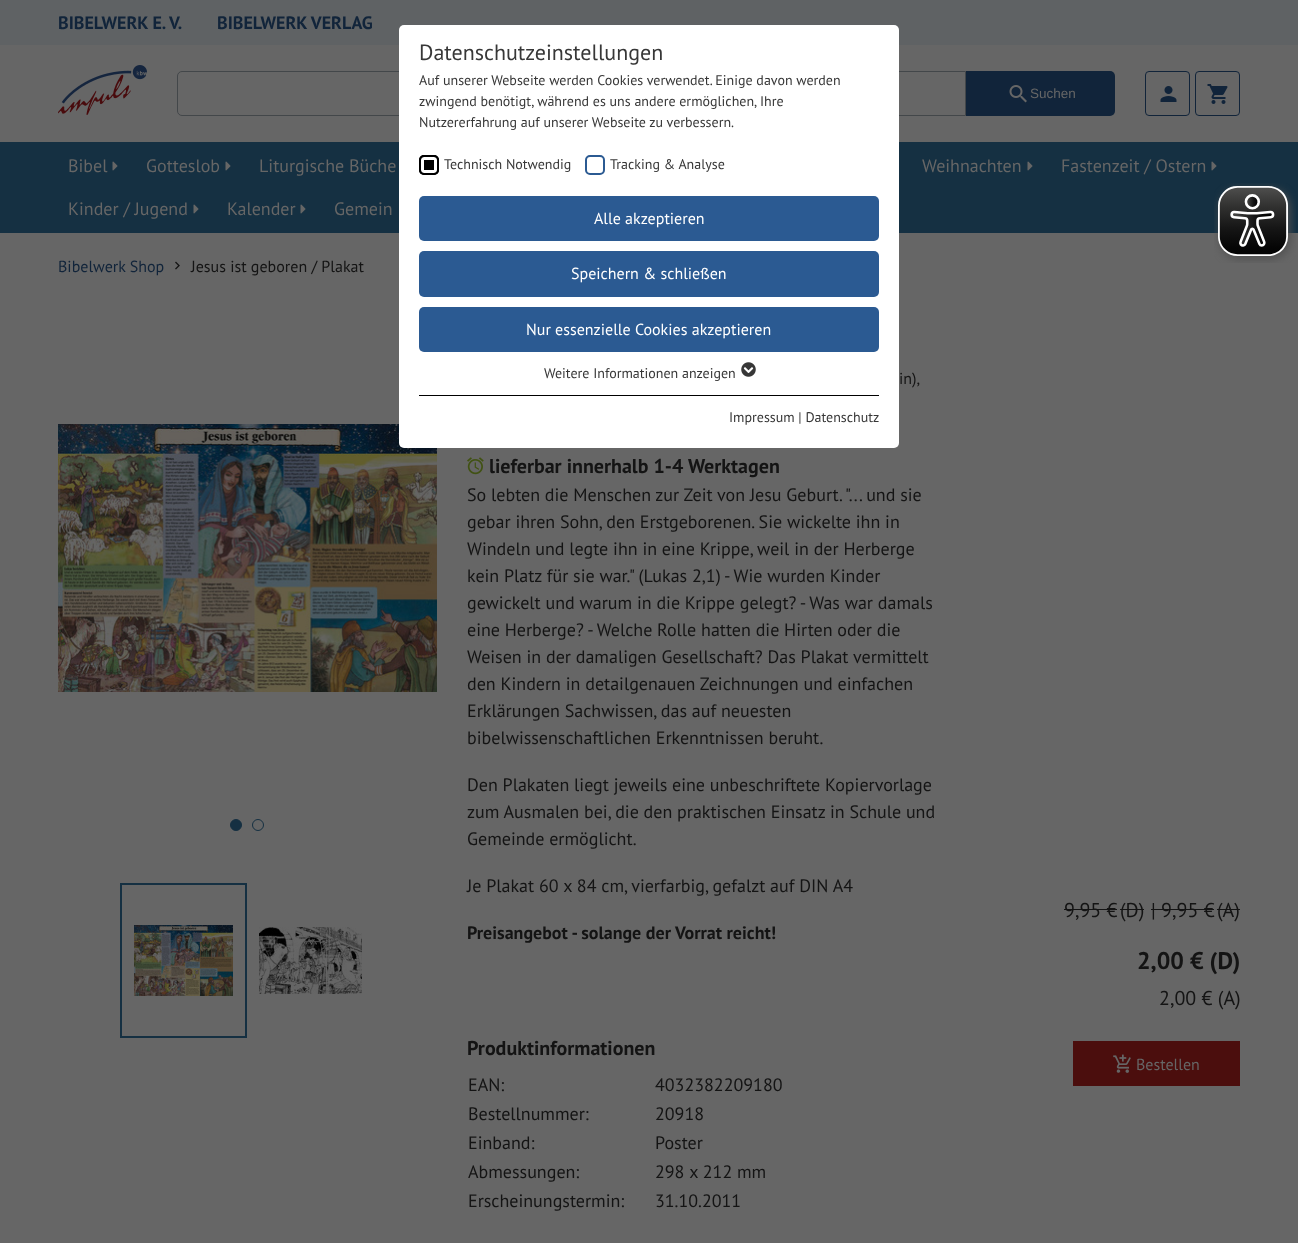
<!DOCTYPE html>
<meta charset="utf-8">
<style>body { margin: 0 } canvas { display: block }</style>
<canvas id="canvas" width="1298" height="1243"></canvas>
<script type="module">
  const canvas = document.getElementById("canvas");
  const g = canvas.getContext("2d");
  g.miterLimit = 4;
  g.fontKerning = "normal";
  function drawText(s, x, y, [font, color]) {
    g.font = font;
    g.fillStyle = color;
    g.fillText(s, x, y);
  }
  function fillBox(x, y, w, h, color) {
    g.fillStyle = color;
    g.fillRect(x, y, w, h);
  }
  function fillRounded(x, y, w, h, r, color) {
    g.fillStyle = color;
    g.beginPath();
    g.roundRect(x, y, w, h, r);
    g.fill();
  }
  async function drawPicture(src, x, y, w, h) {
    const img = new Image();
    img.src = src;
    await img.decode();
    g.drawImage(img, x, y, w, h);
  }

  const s1 = ["bold 18px PT Sans", "#11243A"];
  const s2 = ["13.5px Liberation Sans", "#666666"];
  const s3 = ["18px PT Sans", "#666666"];
  const s4 = ["22px PT Sans", "#373737"];
  const s5 = ["14px PT Sans", "#373737"];
  const s6 = ["16px PT Sans", "#FFFFFF"];
  const s7 = ["16px PT Sans", "#11243A"];
  const s8 = ["16px PT Sans", "#141414"];
  const s9 = ["bold 20px PT Sans", "#141414"];
  const s10 = ["18px PT Sans", "#141414"];
  const s11 = ["bold 18px PT Sans", "#141414"];
  const s12 = ["20px PT Sans", "#141414"];
  const s13 = ["bold 24px PT Sans", "#141414"];
  const s14 = ["16px PT Sans", "#666666"];

  fillBox(0, 0, 1298, 1243, "#666666");
  fillBox(0, 0, 1298, 45, "#5F6264");
  drawText("BIBELWERK E. V.", 58, 29, s1);
  drawText("BIBELWERK VERLAG", 217, 29, s1);
  await drawPicture("pic1.png", 58, 65, 89, 50);
  g.beginPath();
  g.roundRect(177.5, 71.5, 788, 44, [4.5, 0, 0, 4.5]);
  g.strokeStyle = "#43474A";
  g.stroke();
  g.beginPath();
  g.roundRect(966, 71, 149, 45, [0, 5, 5, 0]);
  g.fill();
  await drawPicture("pic2.png", 1009, 85, 18, 18);
  drawText("Suchen", 1030, 98, s2);
  g.beginPath();
  g.roundRect(1145.5, 71.5, 44, 44, 3.5);
  g.strokeStyle = "#11243A";
  g.stroke();
  await drawPicture("pic3.png", 1160, 86, 17, 16);
  g.beginPath();
  g.roundRect(1195.5, 71.5, 44, 44, 3.5);
  g.stroke();
  await drawPicture("pic4.png", 1207, 84, 21, 20);
  fillBox(0, 142, 1298, 91, "#153042");
  drawText("Bibel", 68, 172, s3);
  await drawPicture("pic5.png", 112, 161, 6, 10);
  drawText("Gotteslob", 146, 172, s3);
  await drawPicture("pic5.png", 225, 161, 6, 10);
  drawText("Liturgische Büche", 259, 172, s3);
  drawText("Weihnachten", 922, 172, s3);
  await drawPicture("pic5.png", 1027, 161, 6, 10);
  drawText("Fastenzeit / Ostern", 1061, 172, s3);
  await drawPicture("pic5.png", 1211, 161, 6, 10);
  drawText("Kinder / Jugend", 68, 215, s3);
  await drawPicture("pic5.png", 193, 204, 6, 10);
  drawText("Kalender", 227, 215, s3);
  await drawPicture("pic5.png", 300, 204, 6, 10);
  drawText("Gemein", 334, 215, s3);
  await drawPicture("pic9.png", 58, 424, 379, 268);
  fillRounded(399, 25, 500, 423, 5, "#FFFFFF");
  drawText("Datenschutzeinstellungen", 419, 60, s4);
  drawText("Auf unserer Webseite werden Cookies verwendet. Einige davon werden", 419, 85, s5);
  drawText("zwingend benötigt, während es uns andere ermöglichen, Ihre", 419, 106, s5);
  drawText("Nutzererfahrung auf unserer Webseite zu verbessern.", 419, 127, s5);
  fillRounded(419, 155, 20, 20, 5, "#000000");
  g.beginPath();
  g.roundRect(422.5, 158.5, 13, 13, 1.5);
  g.strokeStyle = "#FFFFFF";
  g.lineWidth = 3;
  g.stroke();
  g.beginPath();
  g.roundRect(420, 156, 18, 18, 4);
  g.strokeStyle = "#000000";
  g.lineWidth = 2;
  g.stroke();
  drawText("Technisch Notwendig", 444, 169, s5);
  g.beginPath();
  g.roundRect(586, 156, 18, 18, 4);
  g.strokeStyle = "#2B5A92";
  g.stroke();
  drawText("Tracking & Analyse", 610, 169, s5);
  fillRounded(419, 196, 460, 45, 5, "#2B5A92");
  drawText("Alle akzeptieren", 594, 224, s6);
  fillRounded(419, 251, 460, 46, 5, "#2B5A92");
  drawText("Speichern & schließen", 571, 279, s6);
  fillRounded(419, 307, 460, 45, 5, "#2B5A92");
  drawText("Nur essenzielle Cookies akzeptieren", 526, 335, s6);
  drawText("Weitere Informationen anzeigen", 544, 378, s5);
  await drawPicture("pic6.png", 741, 362, 15, 15);
  fillBox(419, 395, 460, 1, "#000000");
  drawText("Impressum | Datenschutz", 729, 422, s5);
  await drawPicture("pic7.png", 1214, 183, 82, 80);
  drawText("Bibelwerk Shop", 58, 272, s7);
  await drawPicture("pic8.png", 175, 261, 5, 9);
  drawText("Jesus ist geboren / Plakat", 191, 272, s8);
  g.fillStyle = "#153042";
  g.beginPath();
  g.arc(236, 825, 5.5, 0, Math.PI * 2);
  g.fill();
  g.strokeStyle = "#153042";
  g.lineWidth = 1;
  g.stroke();
  g.beginPath();
  g.arc(258, 825, 5.5, 0, Math.PI * 2);
  g.stroke();
  g.lineWidth = 2;
  g.strokeRect(121, 884, 125, 153);
  await drawPicture("pic10.png", 134, 925, 99, 71);
  await drawPicture("pic11.png", 259, 927, 103, 67);
  drawText("in),", 899, 384, s8);
  await drawPicture("pic12.png", 467, 457, 17, 18);
  drawText("lieferbar innerhalb 1-4 Werktagen", 489, 473, s9);
  drawText("So lebten die Menschen zur Zeit von Jesu Geburt. \"... und sie", 467, 501, s10);
  drawText("gebar ihren Sohn, den Erstgeborenen. Sie wickelte ihn in", 467, 528, s10);
  drawText("Windeln und legte ihn in eine Krippe, weil in der Herberge", 467, 555, s10);
  drawText("kein Platz für sie war.\" (Lukas 2,1) - Wie wurden Kinder", 467, 582, s10);
  drawText("gewickelt und warum in die Krippe gelegt? - Was war damals", 467, 609, s10);
  drawText("eine Herberge? - Welche Rolle hatten die Hirten oder die", 467, 636, s10);
  drawText("Weisen in der damaligen Gesellschaft? Das Plakat vermittelt", 467, 663, s10);
  drawText("den Kindern in detailgenauen Zeichnungen und einfachen", 467, 690, s10);
  drawText("Erklärungen Sachwissen, das auf neuesten", 467, 717, s10);
  drawText("bibelwissenschaftlichen Erkenntnissen beruht.", 467, 744, s10);
  drawText("Den Plakaten liegt jeweils eine unbeschriftete Kopiervorlage", 467, 791, s10);
  drawText("zum Ausmalen bei, die den praktischen Einsatz in Schule und", 467, 818, s10);
  drawText("Gemeinde ermöglicht.", 467, 845, s10);
  drawText("Je Plakat 60 x 84 cm, vierfarbig, gefalzt auf DIN A4", 467, 892, s10);
  drawText("Preisangebot - solange der Vorrat reicht!", 467, 939, s11);
  drawText("9,95 €", 1064, 917, s12);
  fillBox(1064, 909, 53, 1, "#141414");
  fillBox(1120, 909, 24, 1, "#141414");
  drawText("(D)", 1120, 917, s12);
  drawText("| 9,95 €", 1151, 917, s12);
  fillBox(1151, 909, 63, 1, "#141414");
  drawText("(A)", 1217, 917, s12);
  fillBox(1217, 909, 23, 1, "#141414");
  drawText("2,00 € (D)", 1137, 969, s13);
  drawText("2,00 € (A)", 1159, 1005, s12);
  fillBox(1073, 1041, 167, 45, "#4B0E0D");
  await drawPicture("pic13.png", 1113, 1054, 18, 19);
  drawText("Bestellen", 1136, 1070, s14);
  drawText("Produktinformationen", 467, 1055, s9);
  drawText("EAN:", 468, 1091, s10);
  drawText("4032382209180", 655, 1091, s10);
  drawText("Bestellnummer:", 468, 1120, s10);
  drawText("20918", 655, 1120, s10);
  drawText("Einband:", 468, 1149, s10);
  drawText("Poster", 655, 1149, s10);
  drawText("Abmessungen:", 468, 1178, s10);
  drawText("298 x 212 mm", 655, 1178, s10);
  drawText("Erscheinungstermin:", 468, 1207, s10);
  drawText("31.10.2011", 655, 1207, s10);
</script>
